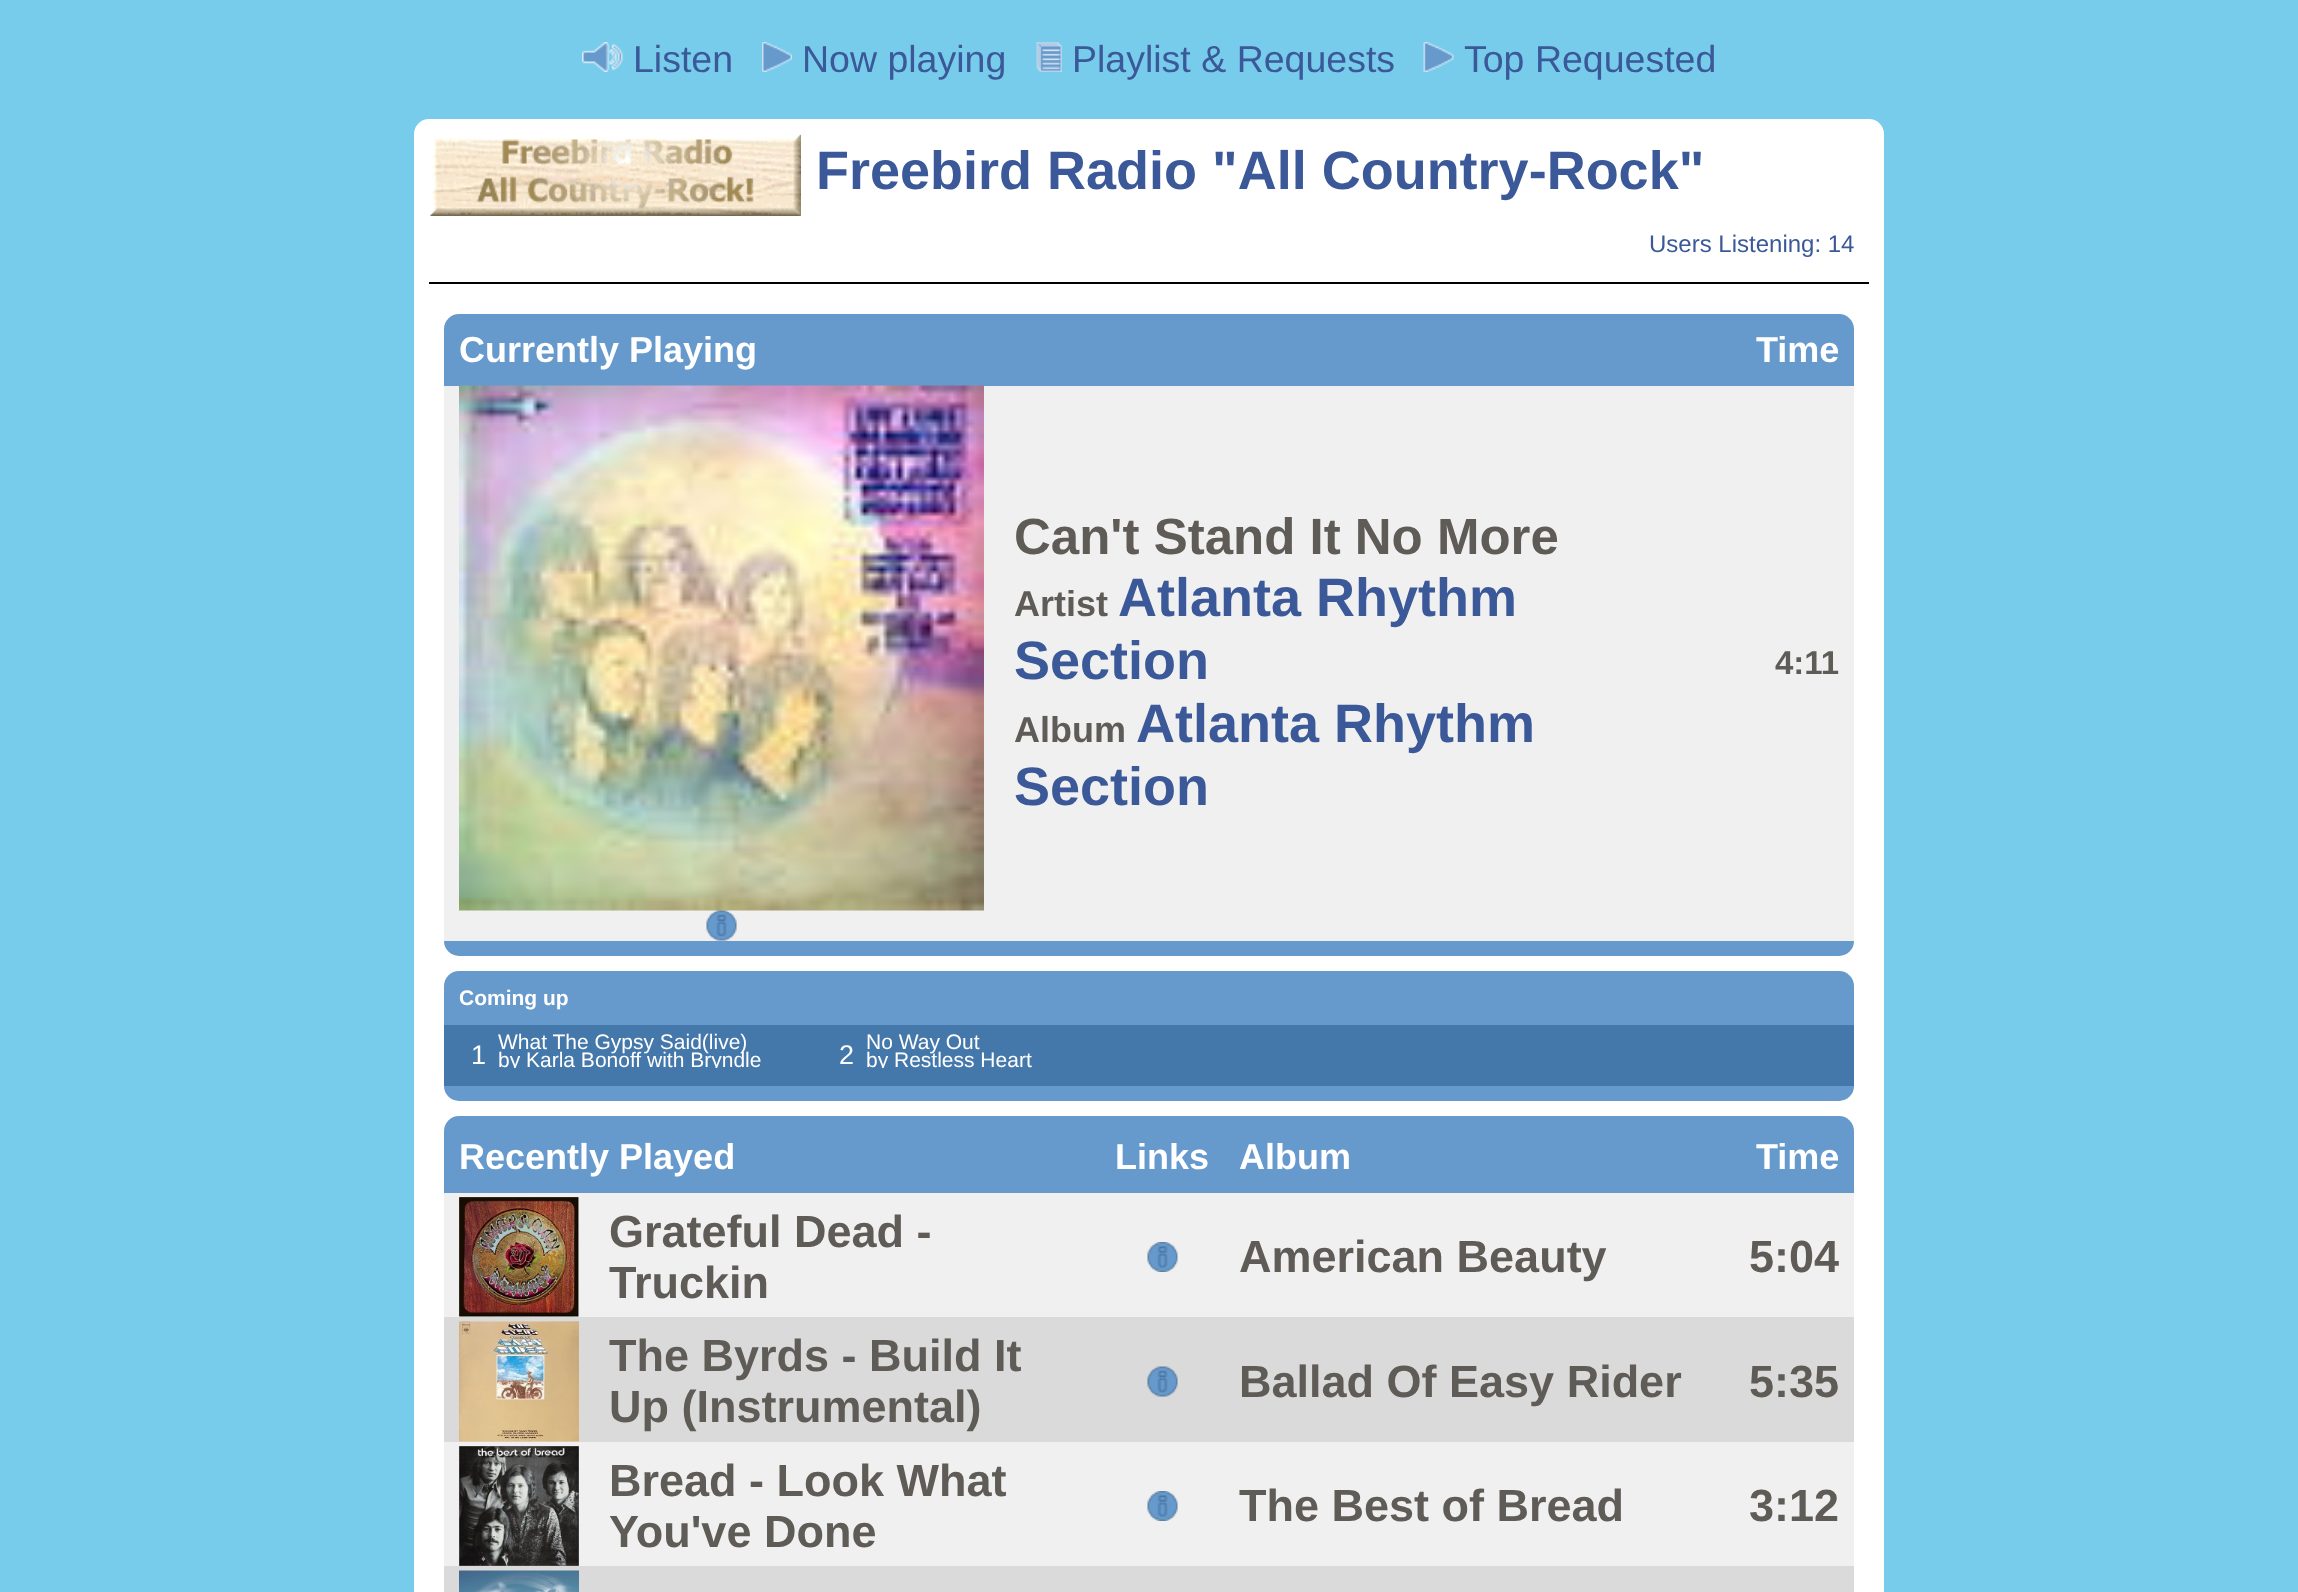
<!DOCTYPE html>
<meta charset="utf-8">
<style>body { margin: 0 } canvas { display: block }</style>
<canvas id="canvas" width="2298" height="1592"></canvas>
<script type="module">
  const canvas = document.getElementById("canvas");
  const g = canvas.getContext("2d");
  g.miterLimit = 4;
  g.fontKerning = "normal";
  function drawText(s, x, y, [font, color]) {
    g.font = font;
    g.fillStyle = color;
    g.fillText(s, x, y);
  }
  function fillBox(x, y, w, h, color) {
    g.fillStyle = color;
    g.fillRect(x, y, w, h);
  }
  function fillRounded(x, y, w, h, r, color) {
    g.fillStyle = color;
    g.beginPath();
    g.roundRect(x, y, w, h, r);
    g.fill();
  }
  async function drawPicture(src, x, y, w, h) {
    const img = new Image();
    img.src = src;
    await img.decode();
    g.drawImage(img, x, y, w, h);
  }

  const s1 = ["37.5px Liberation Sans", "#3B5998"];
  const s2 = ["bold 54px Liberation Sans", "#3B5998"];
  const s3 = ["24px Liberation Sans", "#3B5998"];
  const s4 = ["bold 36px Liberation Sans", "#FFFFFF"];
  const s5 = ["bold 51px Liberation Sans", "#5F5C57"];
  const s6 = ["bold 36px Liberation Sans", "#5F5C57"];
  const s7 = ["bold 33px Liberation Sans", "#5F5C57"];
  const s8 = ["bold 21px Liberation Sans", "#FFFFFF"];
  const s9 = ["27px Liberation Sans", "#FFFFFF"];
  const s10 = ["21px Liberation Sans", "#FFFFFF"];
  const s11 = ["bold 45px Liberation Sans", "#5F5C57"];

  fillBox(0, 0, 2298, 1592, "#78CCEB");
  await drawPicture("pic1.png", 582, 42, 41, 30);
  drawText("Listen", 633, 72, s1);
  await drawPicture("pic2.png", 762, 42, 30, 30);
  drawText("Now playing", 802, 72, s1);
  await drawPicture("pic3.png", 1036, 42, 26, 30);
  drawText("Playlist & Requests", 1072, 72, s1);
  await drawPicture("pic4.png", 1423, 42, 31, 30);
  drawText("Top Requested", 1464, 72, s1);
  fillRounded(414, 119, 1470, 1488, 15, "#FFFFFF");
  fillBox(429, 282, 1440, 2, "#000000");
  await drawPicture("pic5.png", 429, 134, 372, 82);
  drawText("Freebird Radio \"All Country-Rock\"", 816, 189, s2);
  drawText("Users Listening: 14", 1649, 252, s3);
  fillRounded(444, 314, 1410, 642, 15, "#6699CC");
  drawText("Currently Playing", 459, 362, s4);
  drawText("Time", 1756, 362, s4);
  fillBox(444, 386, 1410, 555, "#F0F0F0");
  await drawPicture("pic6.png", 459, 385, 525, 526);
  await drawPicture("pic7.png", 706, 910, 31, 31);
  drawText("Can't Stand It No More", 1014, 554, s5);
  drawText("Artist", 1014, 616, s6);
  drawText("Atlanta Rhythm", 1118, 616, s2);
  drawText("Section", 1014, 679, s2);
  drawText("Album", 1014, 742, s6);
  drawText("Atlanta Rhythm", 1136, 742, s2);
  drawText("Section", 1014, 805, s2);
  drawText("4:11", 1775, 674, s7);
  fillRounded(444, 971, 1410, 130, 15, "#6699CC");
  drawText("Coming up", 459, 1005, s8);
  fillBox(444, 1025, 1410, 61, "#4477AA");
  drawText("1", 471, 1064, s9);
  drawText("What The Gypsy Said(live)", 498, 1049, s10);
  g.save();
  g.beginPath();
  g.rect(467, 1032, 352, 36);
  g.clip();
  drawText("by Karla Bonoff with Bryndle", 498, 1067, s10);
  g.restore();
  drawText("2", 839, 1064, s9);
  drawText("No Way Out", 866, 1049, s10);
  g.save();
  g.beginPath();
  g.rect(834, 1032, 353, 36);
  g.clip();
  drawText("by Restless Heart", 866, 1067, s10);
  g.restore();
  fillRounded(444, 1116, 1410, 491, 15, "#6699CC");
  drawText("Recently Played", 459, 1169, s4);
  drawText("Links", 1115, 1169, s4);
  drawText("Album", 1239, 1169, s4);
  drawText("Time", 1756, 1169, s4);
  fillBox(444, 1193, 1410, 124, "#F0F0F0");
  await drawPicture("pic8.png", 459, 1197, 120, 120);
  drawText("Grateful Dead -", 609, 1247, s11);
  drawText("Truckin", 609, 1298, s11);
  await drawPicture("pic9.png", 1147, 1242, 31, 30);
  drawText("American Beauty", 1239, 1272, s11);
  drawText("5:04", 1749, 1272, s11);
  fillBox(444, 1317, 1410, 125, "#DADADA");
  await drawPicture("pic10.png", 459, 1321, 120, 121);
  drawText("The Byrds - Build It", 609, 1371, s11);
  drawText("Up (Instrumental)", 609, 1422, s11);
  await drawPicture("pic11.png", 1147, 1366, 31, 31);
  drawText("Ballad Of Easy Rider", 1239, 1397, s11);
  drawText("5:35", 1749, 1397, s11);
  fillBox(444, 1442, 1410, 124, "#F0F0F0");
  await drawPicture("pic12.png", 459, 1446, 120, 120);
  drawText("Bread - Look What", 609, 1496, s11);
  drawText("You've Done", 609, 1547, s11);
  await drawPicture("pic9.png", 1147, 1491, 31, 30);
  drawText("The Best of Bread", 1239, 1521, s11);
  drawText("3:12", 1749, 1521, s11);
  fillBox(444, 1566, 1410, 26, "#DADADA");
  await drawPicture("pic13.png", 459, 1570, 120, 22);
</script>
